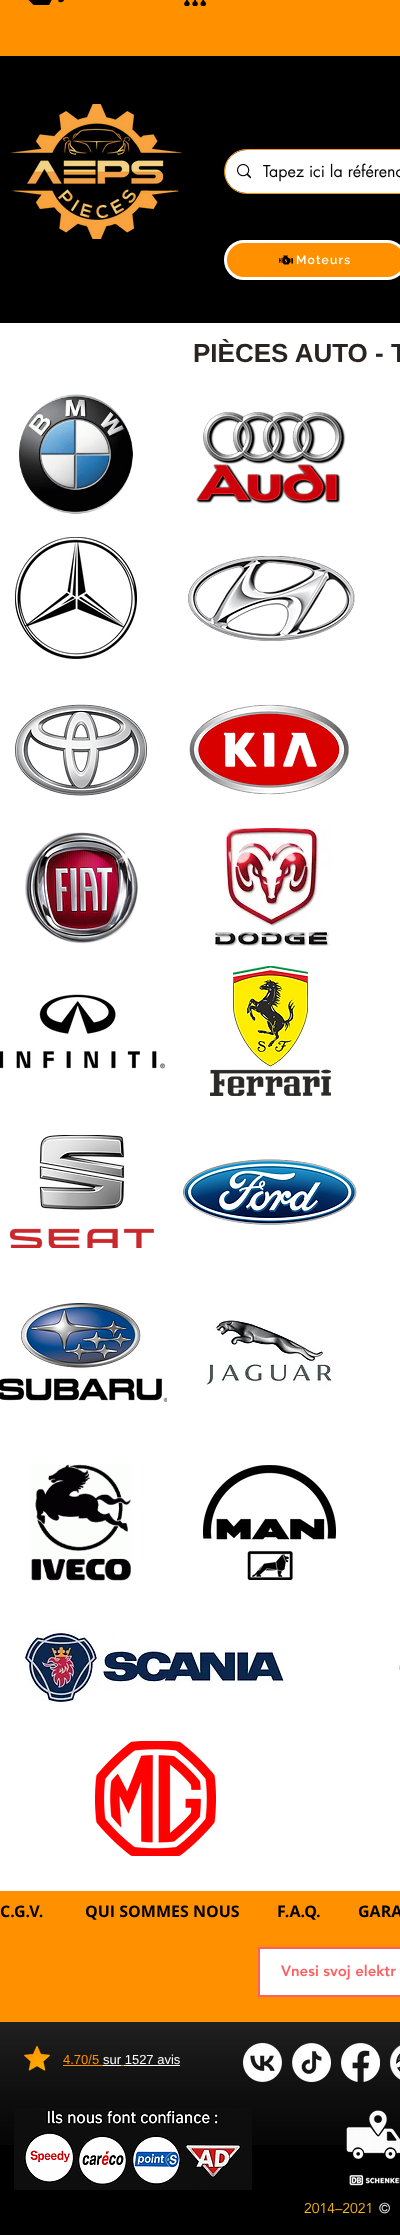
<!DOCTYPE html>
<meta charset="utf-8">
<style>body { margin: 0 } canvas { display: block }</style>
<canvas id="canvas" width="400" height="2235"></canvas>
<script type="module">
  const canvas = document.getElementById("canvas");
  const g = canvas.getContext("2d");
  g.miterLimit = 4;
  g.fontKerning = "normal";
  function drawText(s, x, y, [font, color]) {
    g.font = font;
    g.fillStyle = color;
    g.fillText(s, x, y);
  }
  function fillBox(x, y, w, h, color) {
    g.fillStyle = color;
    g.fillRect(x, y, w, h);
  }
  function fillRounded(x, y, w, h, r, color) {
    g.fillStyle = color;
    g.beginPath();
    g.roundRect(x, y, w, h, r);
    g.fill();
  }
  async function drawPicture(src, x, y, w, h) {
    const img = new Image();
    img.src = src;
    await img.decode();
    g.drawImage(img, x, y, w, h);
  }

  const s1 = ["16px futura", "#000000"];
  const s2 = ["600 12px Raleway", "#FFFFFF"];
  const s3 = ["bold 26px Liberation Sans", "#2A2421"];
  const s4 = ["bold 16px Open Sans", "#000000"];
  const s5 = ["900 15px 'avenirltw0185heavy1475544'", "#FE6060"];
  const s6 = ["13px Liberation Sans", "#FF9000"];
  const s7 = ["13px Liberation Sans", "#FFFFFF"];
  const s8 = ["14px Avenir", "#FFBB00"];
  const s9 = ["14px Avenir", "#FFFFFF"];

  fillBox(0, 0, 400, 2235, "#FFFFFF");
  fillBox(0, 0, 400, 56, "#FF9000");
  await drawPicture("pic1.png", 28, 0, 36, 5);
  await drawPicture("pic2.png", 184, 0, 22, 6);
  fillBox(0, 56, 400, 267, "#000000");
  await drawPicture("pic3.png", 11, 104, 171, 135);
  g.beginPath();
  g.roundRect(224.5, 149.5, 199, 44, 22);
  g.strokeStyle = "#FF9000";
  g.stroke();
  fillRounded(225, 150, 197, 43, 21.5, "#FFFFFF");
  await drawPicture("pic4.png", 237, 164, 14, 15);
  drawText("Tapez ici la référenc", 263, 177, s1);
  g.fillStyle = "#FF9000";
  g.beginPath();
  g.roundRect(225.5, 241.5, 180, 37, 18.5);
  g.fill();
  g.strokeStyle = "#FFFFFF";
  g.lineWidth = 3;
  g.stroke();
  await drawPicture("pic5.png", 279, 255, 14, 10);
  g.letterSpacing = "1.25px";
  drawText("Moteurs", 296, 264, s2);
  g.letterSpacing = "0px";
  drawText("PIÈCES AUTO - T", 193, 362, s3);
  await drawPicture("pic6.png", 19, 394, 114, 120);
  await drawPicture("pic7.png", 196, 412, 150, 92);
  await drawPicture("pic8.png", 15, 537, 122, 122);
  await drawPicture("pic9.png", 188, 556, 167, 85);
  await drawPicture("pic10.png", 15, 704, 132, 92);
  await drawPicture("pic11.png", 189, 704, 160, 91);
  await drawPicture("pic12.png", 25, 832, 113, 112);
  await drawPicture("pic13.png", 212, 828, 120, 118);
  await drawPicture("pic14.png", 0, 994, 166, 75);
  await drawPicture("pic15.png", 210, 966, 121, 130);
  await drawPicture("pic16.png", 10, 1135, 144, 113);
  await drawPicture("pic17.png", 183, 1159, 174, 66);
  await drawPicture("pic18.png", 0, 1303, 167, 99);
  await drawPicture("pic19.png", 206, 1320, 127, 68);
  await drawPicture("pic20.png", 31, 1464, 100, 117);
  await drawPicture("pic21.png", 203, 1465, 133, 115);
  await drawPicture("pic22.png", 24, 1630, 261, 72);
  await drawPicture("pic23.png", 399, 1665, 1, 5);
  await drawPicture("pic24.png", 95, 1741, 121, 115);
  fillBox(0, 1891, 400, 131, "#FF9000");
  drawText("C.G.V.", 0, 1917, s4);
  drawText("QUI SOMMES NOUS", 85, 1917, s4);
  drawText("F.A.Q", 277, 1917, s4);
  drawText(".", 316, 1917, s4);
  drawText("GARA", 358, 1917, s4);
  g.fillStyle = "#FFFFFF";
  g.beginPath();
  g.rect(259, 1948, 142, 48);
  g.fill();
  g.strokeStyle = "#FE6060";
  g.lineWidth = 2;
  g.stroke();
  drawText("Vnesi svoj elektr", 281, 1976, s5);
  fillBox(0, 2022, 400, 213, "#000000");
  await drawPicture("pic32.png", 0, 2022, 400, 123);
  await drawPicture("pic25.png", 24, 2045, 26, 26);
  drawText("4.70/5", 63, 2064, s6);
  fillBox(63, 2065, 40, 1, "#FF9000");
  drawText("sur 1527 avis", 103, 2064, s7);
  fillBox(103, 2065, 18, 1, "#FFFFFF");
  fillBox(121, 2065, 3, 1, "#FF9000");
  fillBox(124, 2065, 56, 1, "#FFFFFF");
  await drawPicture("pic26.png", 243, 2043, 39, 39);
  await drawPicture("pic27.png", 292, 2043, 39, 39);
  await drawPicture("pic28.png", 341, 2043, 39, 39);
  await drawPicture("pic29.png", 390, 2045, 10, 35);
  await drawPicture("pic30.png", 14, 2108, 238, 82);
  await drawPicture("pic31.png", 346, 2110, 54, 76);
  drawText("2014–2021", 304, 2213, s8);
  drawText("©", 379, 2213, s9);
</script>
